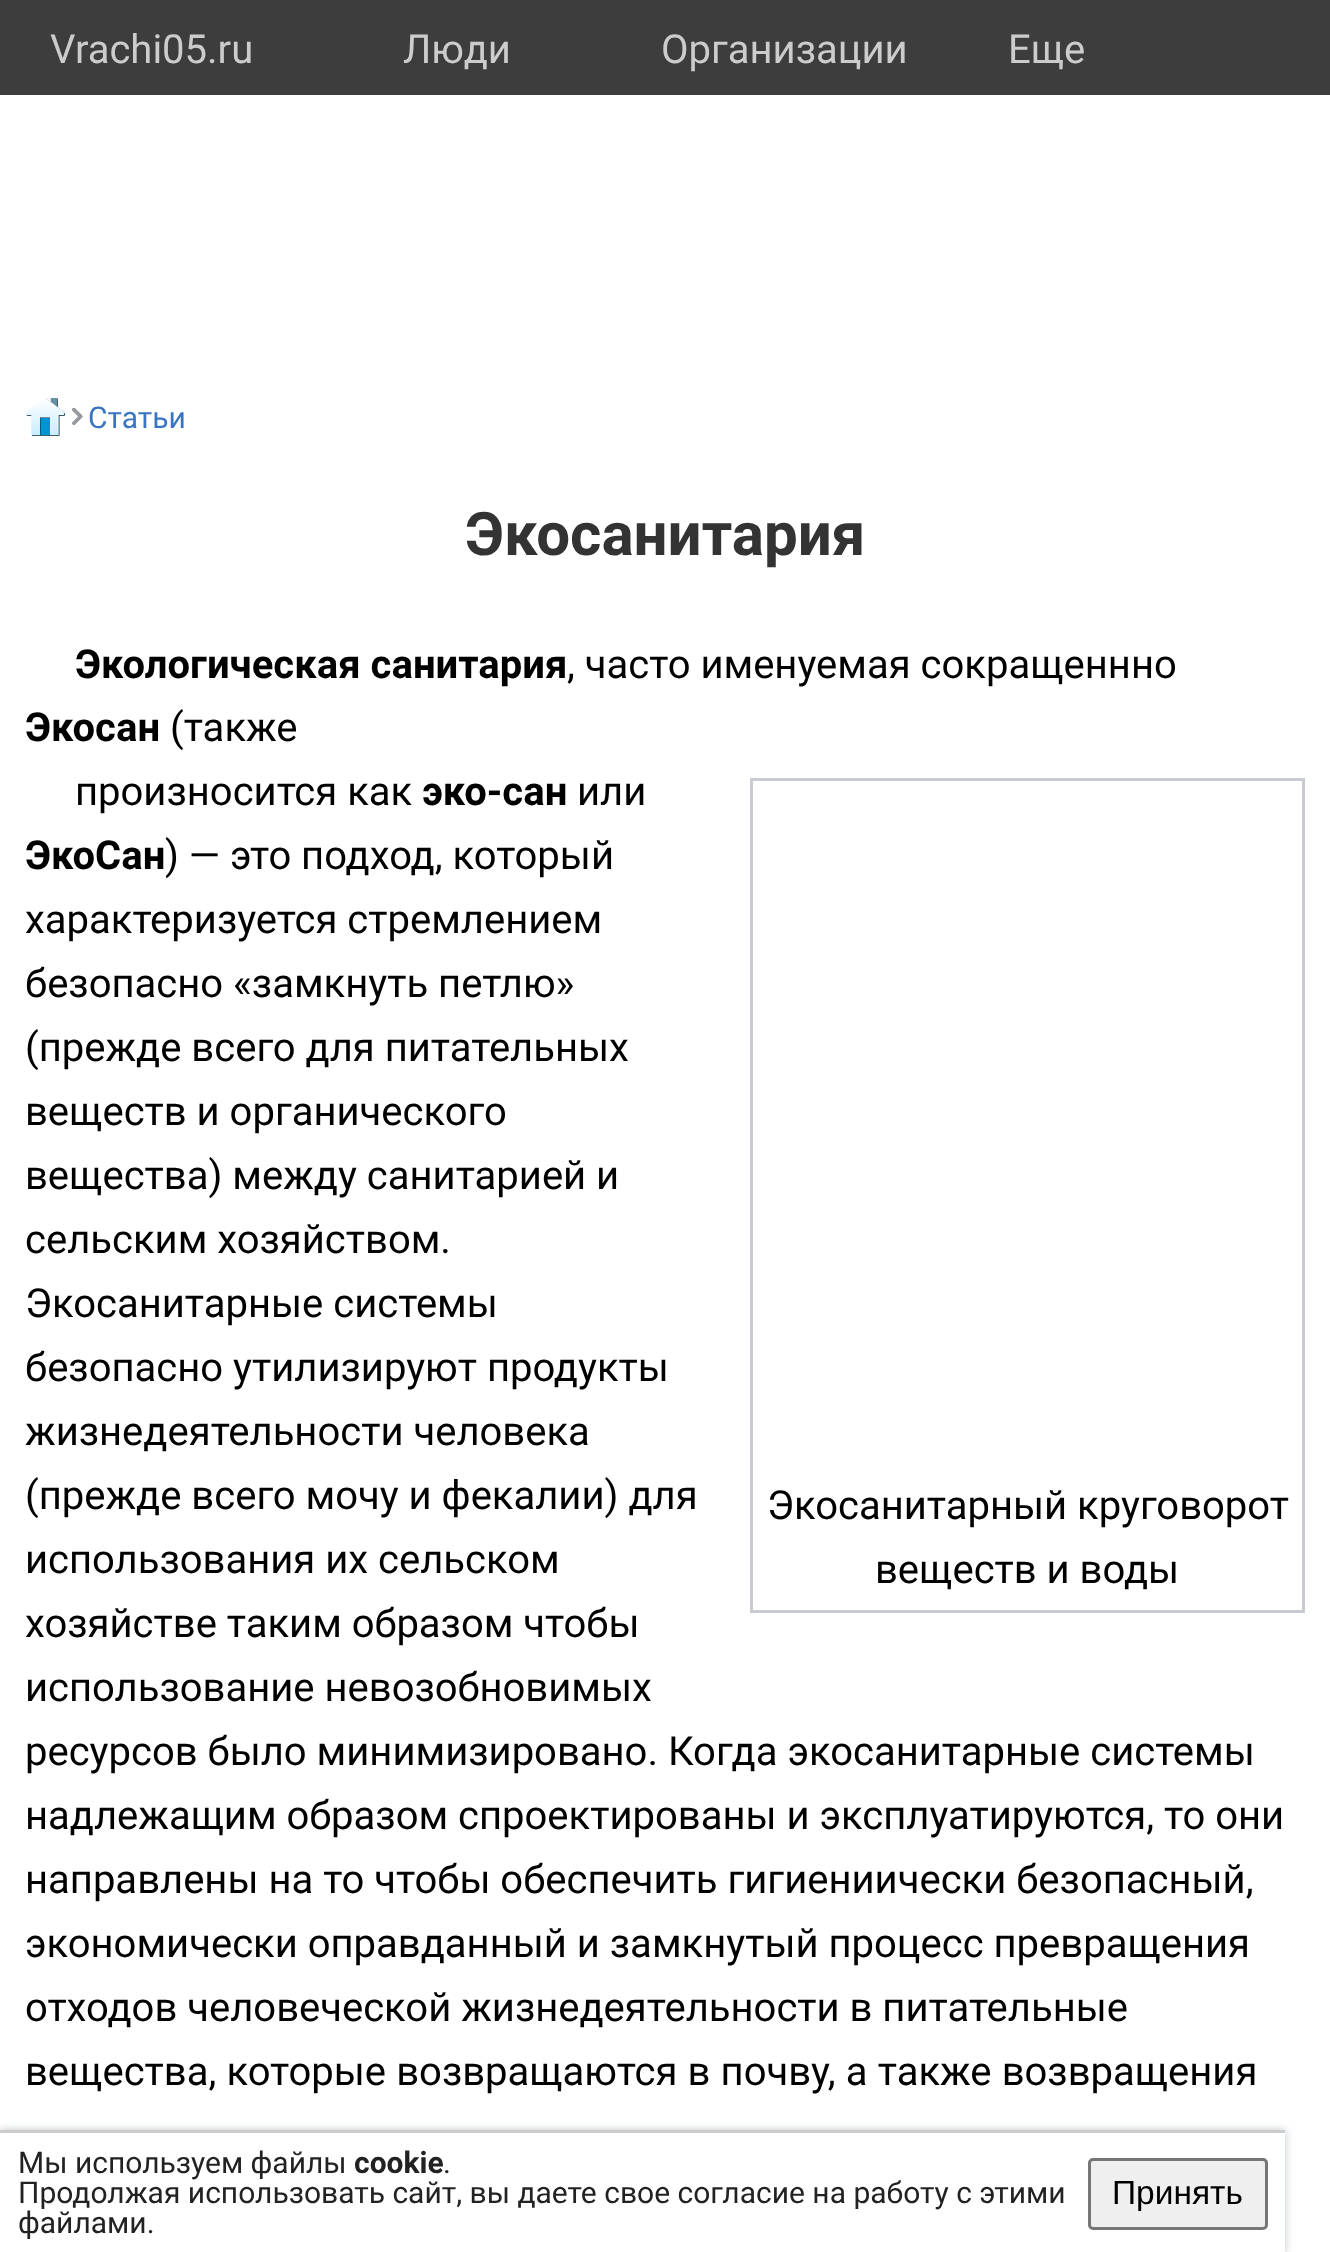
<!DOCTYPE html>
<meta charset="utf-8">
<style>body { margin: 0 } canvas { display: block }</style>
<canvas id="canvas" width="1330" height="2252"></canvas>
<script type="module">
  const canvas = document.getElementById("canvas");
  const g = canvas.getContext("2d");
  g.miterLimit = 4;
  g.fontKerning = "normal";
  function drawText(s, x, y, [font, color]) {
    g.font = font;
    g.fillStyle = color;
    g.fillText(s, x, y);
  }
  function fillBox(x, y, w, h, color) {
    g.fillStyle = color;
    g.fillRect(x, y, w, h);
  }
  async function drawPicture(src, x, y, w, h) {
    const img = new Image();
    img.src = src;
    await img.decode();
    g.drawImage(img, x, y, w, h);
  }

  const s1 = ["40px Roboto", "#CCCCCC"];
  const s2 = ["30px Roboto", "#3A75C3"];
  const s3 = ["bold 60px Roboto", "#333333"];
  const s4 = ["bold 40px Roboto", "#000000"];
  const s5 = ["40px Roboto", "#000000"];
  const s6 = ["30px Roboto", "#222222"];
  const s7 = ["bold 30px Roboto", "#222222"];
  const s8 = ["33.5px Liberation Sans", "#000000"];

  fillBox(0, 0, 1330, 2252, "#FFFFFF");
  fillBox(0, 0, 1330, 95, "#3D3D3D");
  drawText("Vrachi05.ru", 50, 63, s1);
  drawText("Люди", 403, 63, s1);
  drawText("Организации", 661, 63, s1);
  drawText("Eще", 1008, 63, s1);
  await drawPicture("pic1.png", 25, 398, 40, 38);
  await drawPicture("pic2.png", 71, 408, 12, 17);
  drawText("Статьи", 88, 428, s2);
  drawText("Экосанитария", 465, 555, s3);
  drawText("Экологическая санитария", 75, 678, s4);
  drawText(", часто именуемая сокращеннно", 567, 678, s5);
  drawText("Экосан", 25, 741, s4);
  drawText("(также", 170, 741, s5);
  drawText("произносится как", 75, 805, s5);
  drawText("эко-сан", 422, 805, s4);
  drawText("или", 577, 805, s5);
  drawText("ЭкоСан", 25, 869, s4);
  drawText(") — это подход, который", 165, 869, s5);
  drawText("характеризуется стремлением", 25, 933, s5);
  drawText("безопасно «замкнуть петлю»", 25, 997, s5);
  drawText("(прежде всего для питательных", 25, 1061, s5);
  drawText("веществ и органического", 25, 1125, s5);
  drawText("вещества) между санитарией и", 25, 1189, s5);
  drawText("сельским хозяйством.", 25, 1253, s5);
  drawText("Экосанитарные системы", 25, 1317, s5);
  drawText("безопасно утилизируют продукты", 25, 1381, s5);
  drawText("жизнедеятельности человека", 25, 1445, s5);
  drawText("(прежде всего мочу и фекалии) для", 25, 1509, s5);
  drawText("использования их сельском", 25, 1573, s5);
  drawText("хозяйстве таким образом чтобы", 25, 1637, s5);
  drawText("использование невозобновимых", 25, 1701, s5);
  drawText("ресурсов было минимизировано. Когда экосанитарные системы", 25, 1765, s5);
  drawText("надлежащим образом спроектированы и эксплуатируются, то они", 25, 1829, s5);
  drawText("направлены на то чтобы обеспечить гигиениически безопасный,", 25, 1893, s5);
  drawText("экономически оправданный и замкнутый процесс превращения", 25, 1957, s5);
  drawText("отходов человеческой жизнедеятельности в питательные", 25, 2021, s5);
  g.wordSpacing = "0.25px";
  drawText("вещества, которые возвращаются в почву, а также возвращения", 25, 2085, s5);
  g.strokeStyle = "#C8CCD1";
  g.lineWidth = 3;
  g.strokeRect(751.5, 779.5, 552, 832);
  g.wordSpacing = "0px";
  drawText("Экосанитарный круговорот", 767, 1519, s5);
  drawText("веществ и воды", 875, 1583, s5);
  g.fillStyle = "rgba(34, 60, 80, 0.3)";
  g.filter = "blur(4px)";
  g.beginPath();
  g.rect(0, 2130, 1285, 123);
  g.fill();
  g.filter = "none";
  fillBox(0, 2133, 1285, 119, "#FFFFFF");
  fillBox(0, 2130, 1285, 3, "#CCCCCC");
  drawText("Мы используем файлы", 18, 2173, s6);
  drawText("cookie", 354, 2173, s7);
  drawText(".", 443, 2173, s6);
  drawText("Продолжая использовать сайт, вы даете свое согласие на работу с этими", 18, 2203, s6);
  drawText("файлами.", 18, 2233, s6);
  g.fillStyle = "#EFEFEF";
  g.beginPath();
  g.roundRect(1089.5, 2159.5, 177, 69, 3.5);
  g.fill();
  g.strokeStyle = "#767676";
  g.stroke();
  drawText("Принять", 1112, 2204, s8);
</script>
